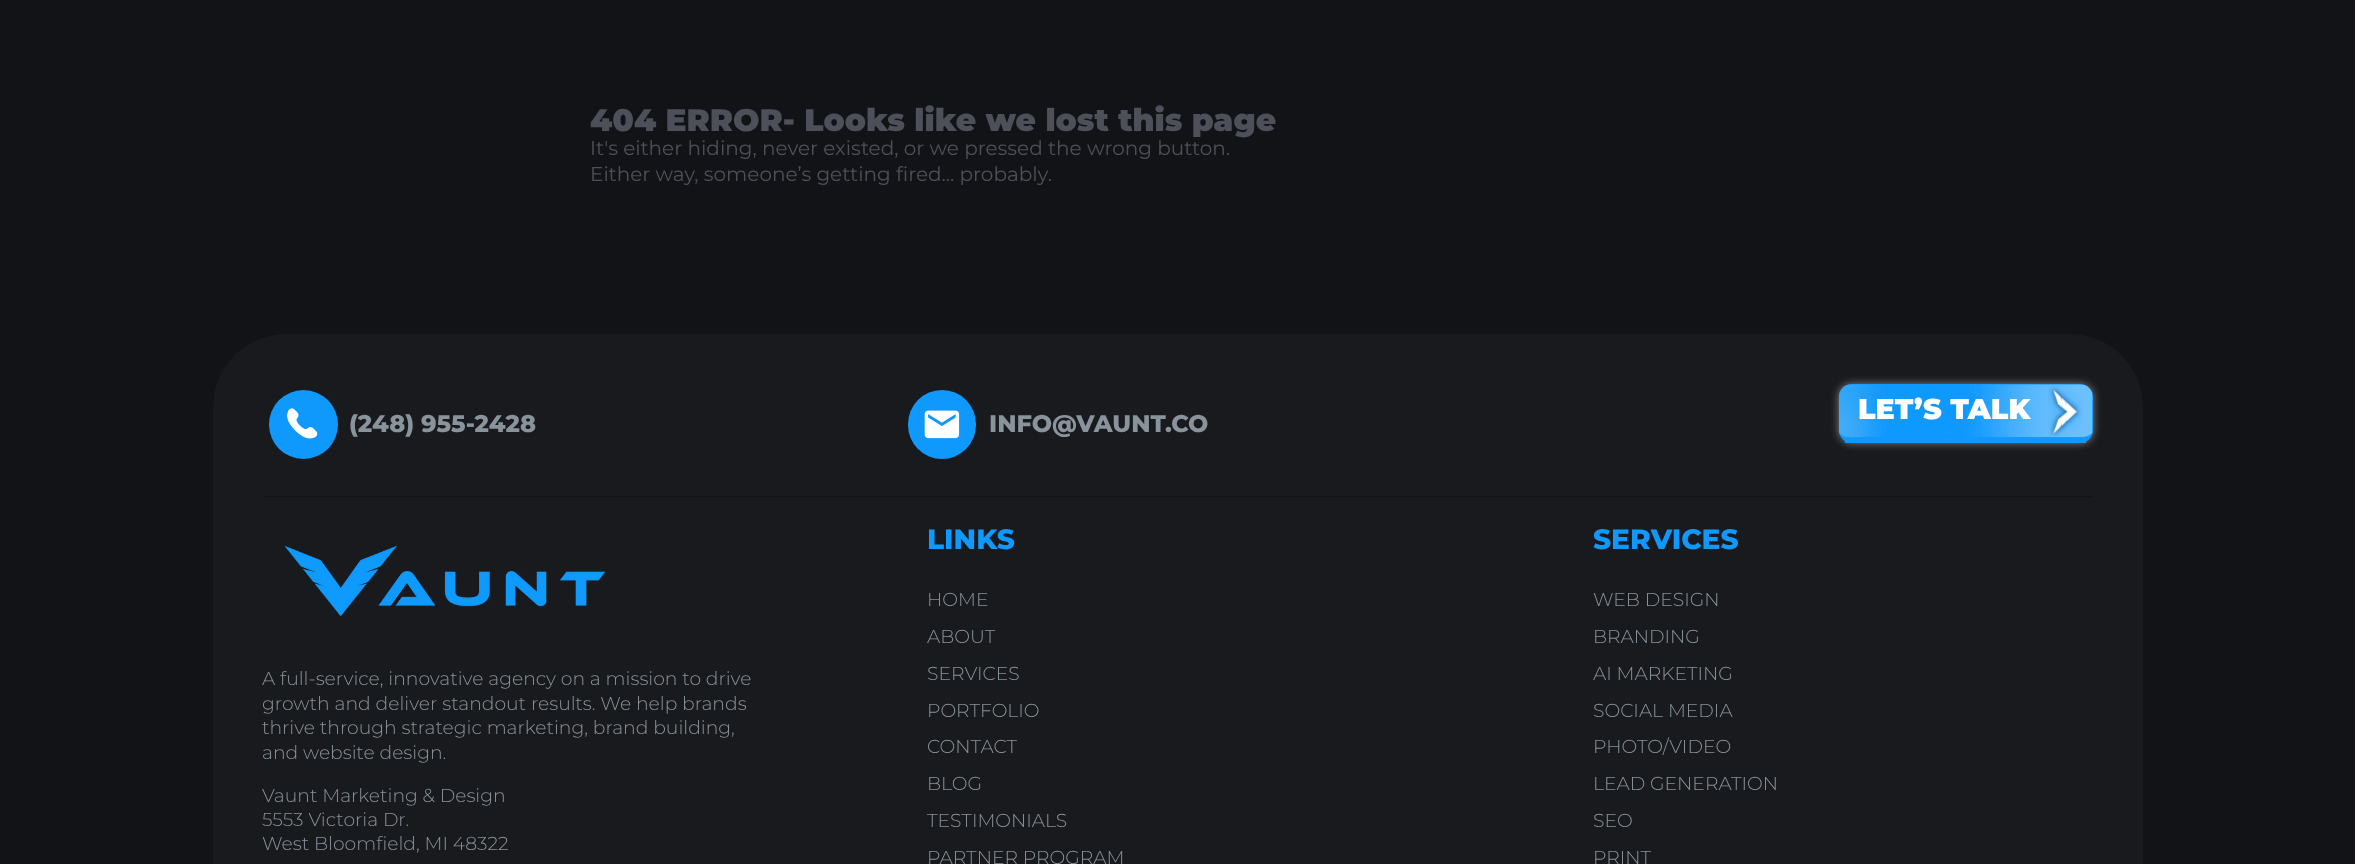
<!DOCTYPE html>
<meta charset="utf-8">
<style>body { margin: 0 } canvas { display: block }</style>
<canvas id="canvas" width="2355" height="864"></canvas>
<script type="module">
  const canvas = document.getElementById("canvas");
  const g = canvas.getContext("2d");
  g.miterLimit = 4;
  g.fontKerning = "normal";
  function drawText(s, x, y, [font, color]) {
    g.font = font;
    g.fillStyle = color;
    g.fillText(s, x, y);
  }
  function fillBox(x, y, w, h, color) {
    g.fillStyle = color;
    g.fillRect(x, y, w, h);
  }
  function fillRounded(x, y, w, h, r, color) {
    g.fillStyle = color;
    g.beginPath();
    g.roundRect(x, y, w, h, r);
    g.fill();
  }
  async function drawPicture(src, x, y, w, h) {
    const img = new Image();
    img.src = src;
    await img.decode();
    g.drawImage(img, x, y, w, h);
  }

  const s1 = ["900 31.25px Montserrat", "#4D5059"];
  const s2 = ["20px Montserrat", "#4D5059"];
  const s3 = ["900 28.5px Montserrat", "#FFFFFF"];
  const s4 = ["800 24px Montserrat", "#89939B"];
  const s5 = ["300 18.75px Montserrat", "#89939B"];
  const s6 = ["800 28px Montserrat", "#0F99FD"];

  fillBox(0, 0, 2355, 864, "#121316");
  drawText("404 ERROR- Looks like we lost this page", 590, 131, s1);
  drawText("It's either hiding, never existed, or we pressed the wrong button.", 590, 155, s2);
  drawText("Either way, someone’s getting fired... probably.", 590, 181, s2);
  fillRounded(213, 334, 1930, 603, 73, "#191A1D");
  g.fillStyle = "rgba(159, 165, 170, 0.79)";
  g.filter = "blur(4.5px)";
  g.beginPath();
  g.roundRect(1839, 384, 254, 59, 13);
  g.fill();
  g.filter = "none";
  fillRounded(1839, 384, 254, 59, 13, "#0F99FD");
  await drawPicture("pic1.png", 1838, 384, 255, 54);
  fillBox(1845, 441, 241, 2, "#0F99FD");
  drawText("LET’S TALK", 1858, 419, s3);
  await drawPicture("pic2.png", 2048, 385, 35, 52);
  g.fillStyle = "#0F99FD";
  g.beginPath();
  g.arc(303.5, 424.5, 34.5, 0, Math.PI * 2);
  g.fill();
  await drawPicture("pic3.png", 287, 408, 31, 31);
  drawText("(248) 955-2428", 349, 432, s4);
  fillRounded(908, 390, 68, 69, 34, "#0F99FD");
  await drawPicture("pic4.png", 924, 410, 36, 29);
  drawText("INFO@VAUNT.CO", 989, 432, s4);
  fillBox(263, 496, 1830, 1, "#121316");
  await drawPicture("pic5.png", 284, 545, 322, 71);
  drawText("A full-service, innovative agency on a mission to drive", 262, 685, s5);
  drawText("growth and deliver standout results. We help brands", 262, 710, s5);
  drawText("thrive through strategic marketing, brand building,", 262, 734, s5);
  drawText("and website design.", 262, 759, s5);
  drawText("Vaunt Marketing & Design", 262, 802, s5);
  drawText("5553 Victoria Dr.", 262, 826, s5);
  drawText("West Bloomfield, MI 48322", 262, 850, s5);
  drawText("LINKS", 927, 549, s6);
  drawText("HOME", 927, 606, s5);
  drawText("ABOUT", 927, 643, s5);
  drawText("SERVICES", 927, 680, s5);
  drawText("PORTFOLIO", 927, 717, s5);
  drawText("CONTACT", 927, 753, s5);
  drawText("BLOG", 927, 790, s5);
  drawText("TESTIMONIALS", 927, 827, s5);
  drawText("PARTNER PROGRAM", 927, 864, s5);
  drawText("SERVICES", 1593, 549, s6);
  drawText("WEB DESIGN", 1593, 606, s5);
  drawText("BRANDING", 1593, 643, s5);
  drawText("AI MARKETING", 1593, 680, s5);
  drawText("SOCIAL MEDIA", 1593, 717, s5);
  drawText("PHOTO/VIDEO", 1593, 753, s5);
  drawText("LEAD GENERATION", 1593, 790, s5);
  drawText("SEO", 1593, 827, s5);
  drawText("PRINT", 1593, 864, s5);
</script>
